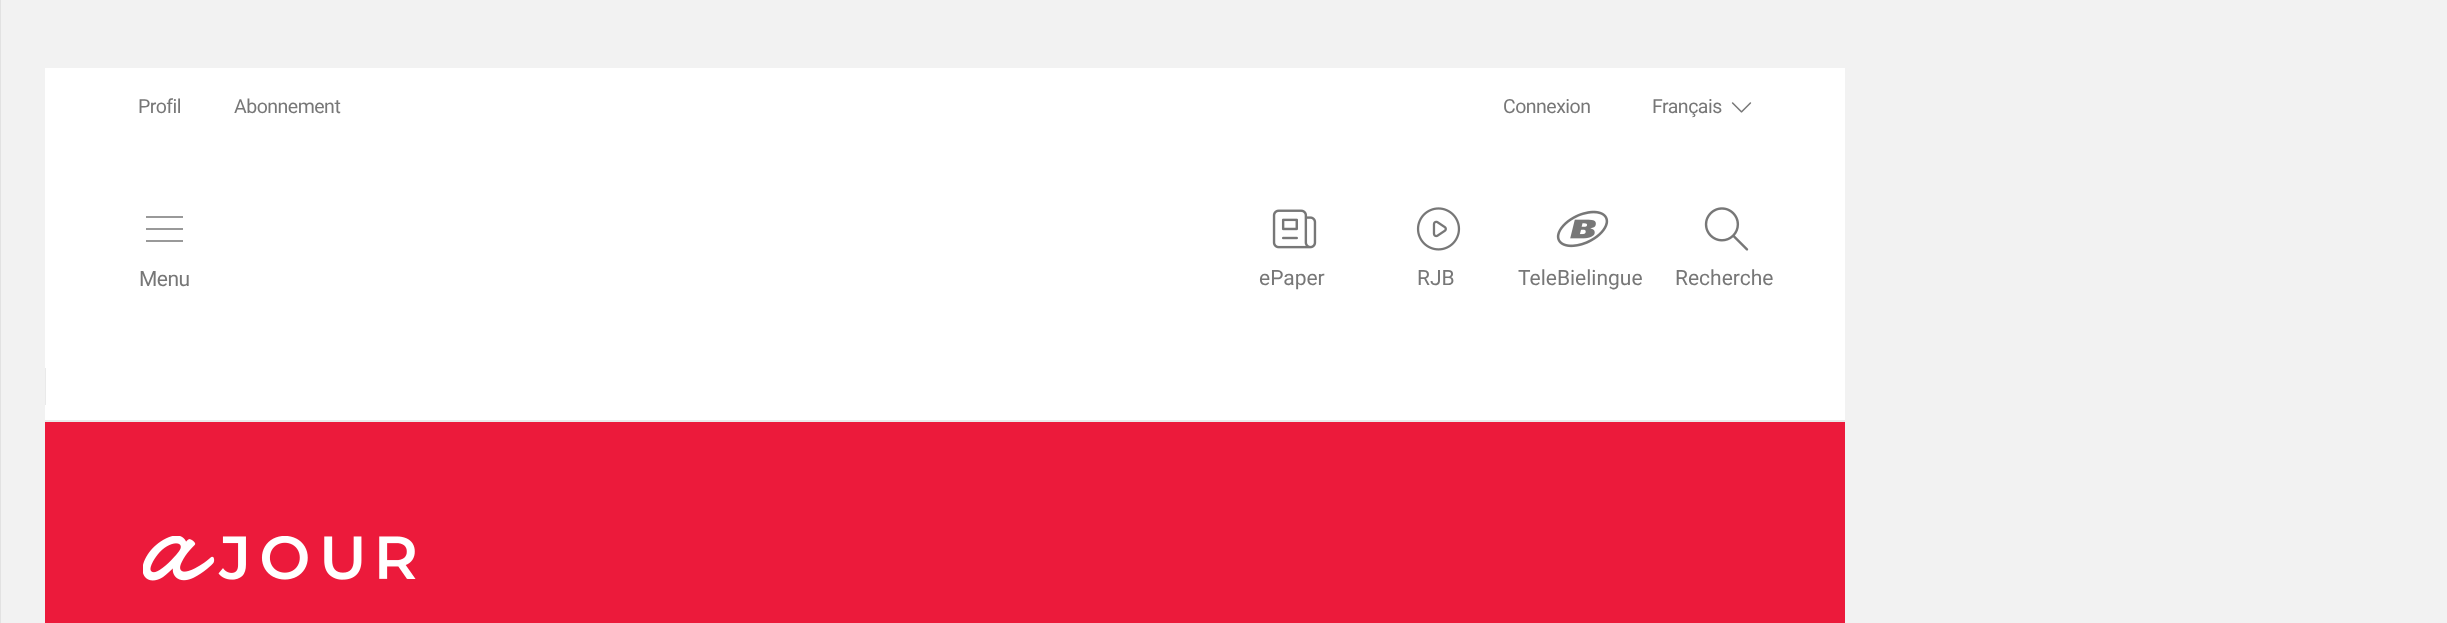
<!DOCTYPE html>
<meta charset="utf-8">
<style>body { margin: 0 } canvas { display: block }</style>
<canvas id="canvas" width="2447" height="623"></canvas>
<script type="module">
  const canvas = document.getElementById("canvas");
  const g = canvas.getContext("2d");
  g.miterLimit = 4;
  g.fontKerning = "normal";
  function drawText(s, x, y, [font, color]) {
    g.font = font;
    g.fillStyle = color;
    g.fillText(s, x, y);
  }
  function fillBox(x, y, w, h, color) {
    g.fillStyle = color;
    g.fillRect(x, y, w, h);
  }
  async function drawPicture(src, x, y, w, h) {
    const img = new Image();
    img.src = src;
    await img.decode();
    g.drawImage(img, x, y, w, h);
  }

  const s1 = ["19.5px Roboto", "#777777"];
  const s2 = ["21px Roboto", "#777777"];

  fillBox(0, 0, 2447, 623, "#F2F2F2");
  fillBox(0, 0, 1, 623, "#E2E2E2");
  fillBox(45, 68, 1800, 352, "#FFFFFF");
  fillBox(45, 420, 1800, 2, "#EAEAEA");
  g.letterSpacing = "-0.5px";
  drawText("Profil", 138, 113, s1);
  drawText("Abonnement", 234, 113, s1);
  drawText("Connexion", 1503, 113, s1);
  drawText("Français", 1652, 113, s1);
  await drawPicture("pic1.png", 1731, 102, 21, 11);
  fillBox(146, 228, 37, 2, "#999999");
  fillBox(146, 216, 37, 2, "#999999");
  fillBox(146, 240, 37, 2, "#999999");
  drawText("Menu", 139, 286, s2);
  await drawPicture("pic2.png", 1272, 209, 45, 40);
  g.letterSpacing = "0px";
  drawText("ePaper", 1259, 285, s2);
  await drawPicture("pic3.png", 1416, 207, 45, 44);
  drawText("RJB", 1417, 285, s2);
  await drawPicture("pic4.png", 1556, 210, 53, 38);
  drawText("TeleBielingue", 1518, 285, s2);
  await drawPicture("pic5.png", 1704, 207, 45, 44);
  drawText("Recherche", 1675, 285, s2);
  fillBox(45, 368, 1, 37, "#EAEAEA");
  fillBox(45, 422, 1800, 201, "#EC1A3B");
  await drawPicture("pic6.png", 143, 536, 273, 45);
</script>
